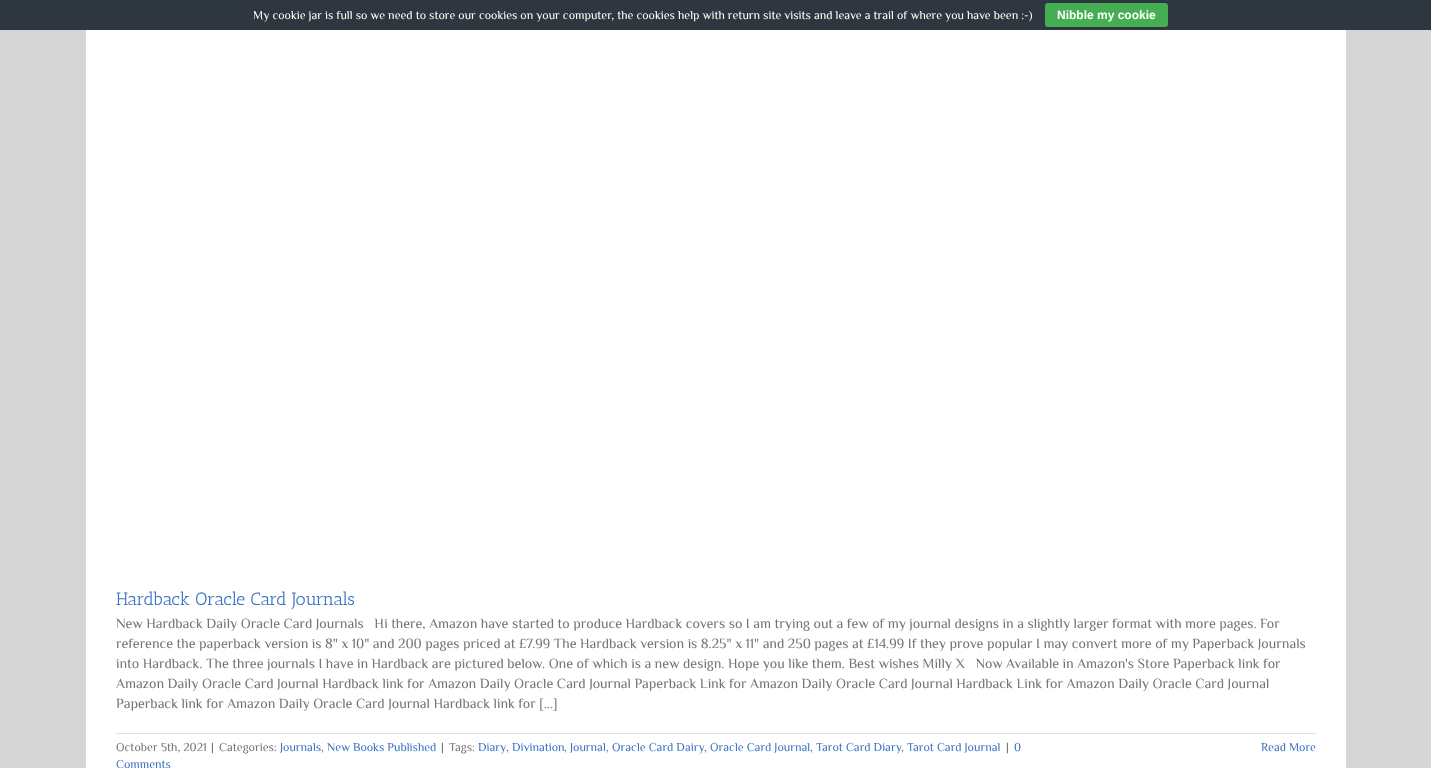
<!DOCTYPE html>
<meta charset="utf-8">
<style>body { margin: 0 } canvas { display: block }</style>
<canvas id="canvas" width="1431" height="768"></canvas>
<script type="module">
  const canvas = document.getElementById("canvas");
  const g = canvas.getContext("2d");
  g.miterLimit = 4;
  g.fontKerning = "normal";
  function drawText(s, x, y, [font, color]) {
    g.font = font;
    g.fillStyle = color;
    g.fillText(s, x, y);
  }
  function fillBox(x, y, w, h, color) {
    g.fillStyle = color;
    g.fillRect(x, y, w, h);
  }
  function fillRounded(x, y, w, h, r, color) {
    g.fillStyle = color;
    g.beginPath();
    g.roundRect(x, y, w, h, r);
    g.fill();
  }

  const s1 = ["12px Philosopher", "#FFFFFF"];
  const s2 = ["bold 12px Liberation Sans", "#FFFFFF"];
  const s3 = ["18px Antic Slab", "#3A74C4"];
  const s4 = ["14px Philosopher", "#747474"];
  const s5 = ["12px Philosopher", "#747474"];
  const s6 = ["12px Philosopher", "#3A74C4"];

  fillBox(0, 0, 1431, 768, "#D7D6D6");
  fillBox(0, 0, 1431, 30, "#2E363F");
  drawText("My cookie jar is full so we need to store our cookies on your computer, the cookies help with return site visits and leave a trail of where you have been :-)", 253, 19, s1);
  fillRounded(1045, 3, 123, 24, 3, "#45AE52");
  drawText("Nibble my cookie", 1057, 19, s2);
  fillBox(86, 30, 1260, 738, "#FFFFFF");
  drawText("Hardback Oracle Card Journals", 116, 605, s3);
  drawText("New Hardback Daily Oracle Card Journals   Hi there, Amazon have started to produce Hardback covers so I am trying out a few of my journal designs in a slightly larger format with more pages. For", 116, 628, s4);
  drawText("reference the paperback version is 8\" x 10\" and 200 pages priced at £7.99 The Hardback version is 8.25\" x 11\" and 250 pages at £14.99 If they prove popular I may convert more of my Paperback Journals", 116, 648, s4);
  drawText("into Hardback. The three journals I have in Hardback are pictured below. One of which is a new design. Hope you like them. Best wishes Milly X   Now Available in Amazon's Store Paperback link for", 116, 668, s4);
  drawText("Amazon Daily Oracle Card Journal Hardback link for Amazon Daily Oracle Card Journal Paperback Link for Amazon Daily Oracle Card Journal Hardback Link for Amazon Daily Oracle Card Journal", 116, 688, s4);
  drawText("Paperback link for Amazon Daily Oracle Card Journal Hardback link for [...]", 116, 708, s4);
  fillBox(116, 733, 1200, 1, "#E0DEDE");
  drawText("October 5th, 2021", 116, 751, s5);
  drawText("|", 211, 751, s5);
  drawText("Categories:", 219, 751, s5);
  drawText("Journals", 280, 751, s6);
  drawText(",", 321, 751, s5);
  drawText("New Books Published", 327, 751, s6);
  drawText("|", 441, 751, s5);
  drawText("Tags:", 449, 751, s5);
  drawText("Diary", 478, 751, s6);
  drawText(",", 506, 751, s5);
  drawText("Divination", 512, 751, s6);
  drawText(",", 564, 751, s5);
  drawText("Journal", 570, 751, s6);
  drawText(",", 606, 751, s5);
  drawText("Oracle Card Dairy", 612, 751, s6);
  drawText(",", 704, 751, s5);
  drawText("Oracle Card Journal", 710, 751, s6);
  drawText(",", 810, 751, s5);
  drawText("Tarot Card Diary", 816, 751, s6);
  drawText(",", 901, 751, s5);
  drawText("Tarot Card Journal", 907, 751, s6);
  drawText("|", 1006, 751, s5);
  drawText("0", 1014, 751, s6);
  drawText("Comments", 116, 768, s6);
  drawText("Read More", 1261, 751, s6);
</script>
